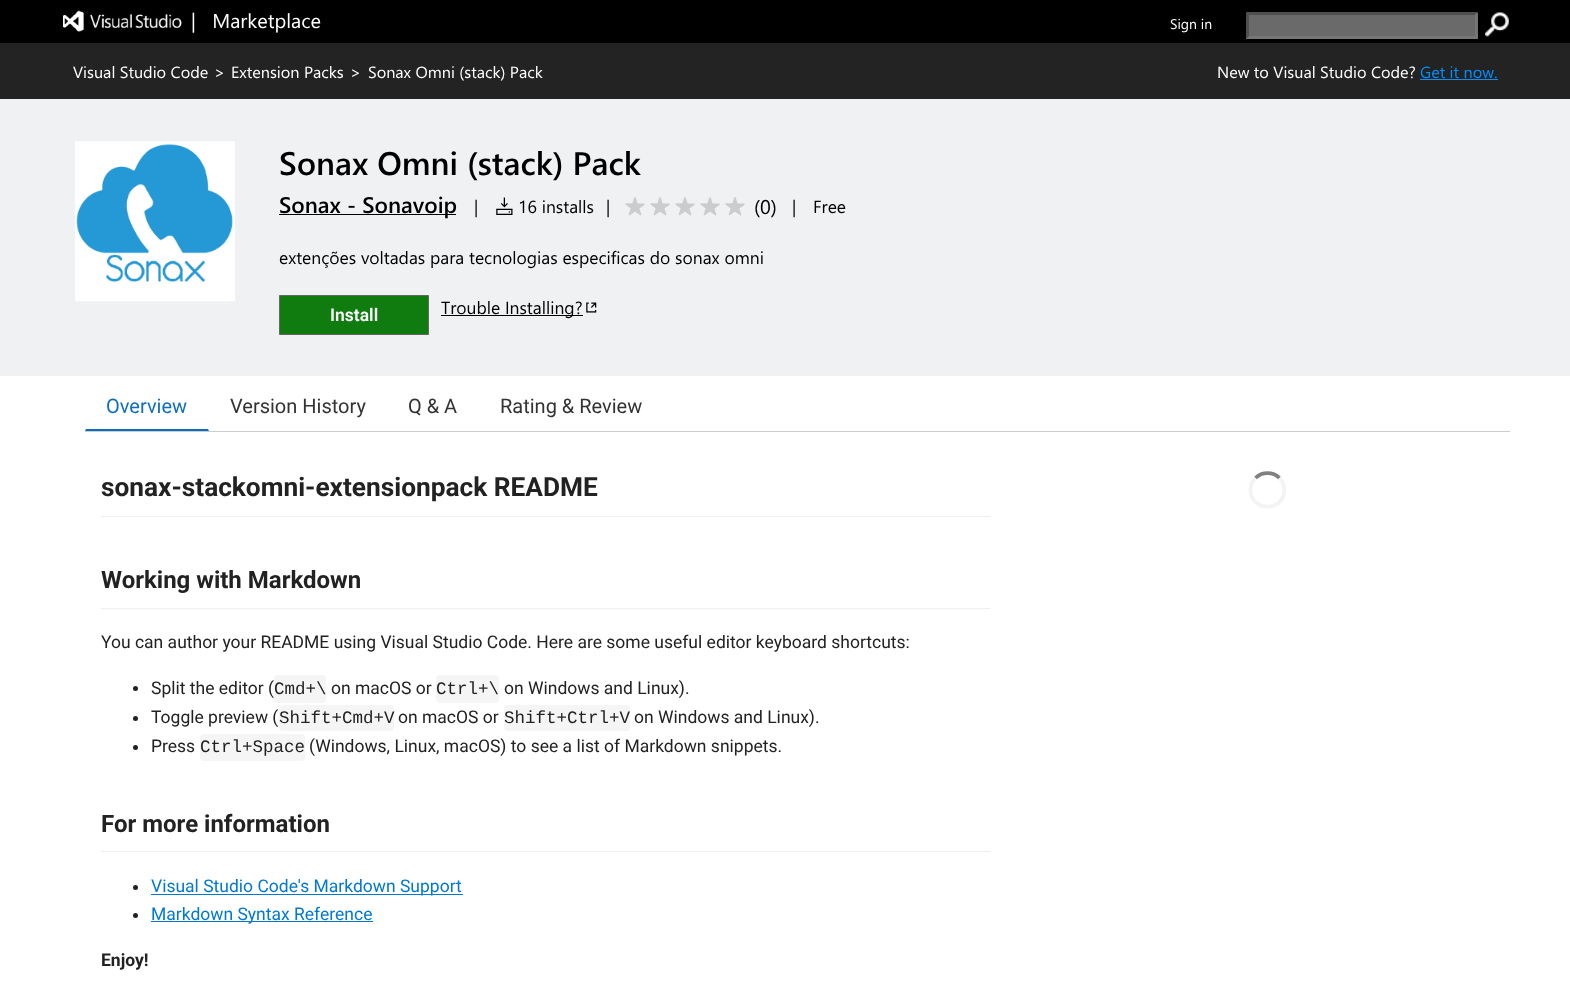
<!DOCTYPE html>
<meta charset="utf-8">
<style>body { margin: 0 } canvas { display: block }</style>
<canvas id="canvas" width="1570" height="984"></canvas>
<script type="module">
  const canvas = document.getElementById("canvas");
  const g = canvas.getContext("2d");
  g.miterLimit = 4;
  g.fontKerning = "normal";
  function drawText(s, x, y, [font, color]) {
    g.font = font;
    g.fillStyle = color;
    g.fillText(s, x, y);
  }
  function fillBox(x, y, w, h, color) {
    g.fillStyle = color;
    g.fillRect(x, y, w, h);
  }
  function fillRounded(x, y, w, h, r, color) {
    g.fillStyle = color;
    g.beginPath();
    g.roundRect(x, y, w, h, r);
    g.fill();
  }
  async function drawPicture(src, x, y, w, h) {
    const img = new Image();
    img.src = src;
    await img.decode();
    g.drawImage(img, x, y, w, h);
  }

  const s1 = ["20px Segoe UI", "#FFFFFF"];
  const s2 = ["14px Segoe UI", "#FFFFFF"];
  const s3 = ["16.25px Segoe UI", "#FFFFFF"];
  const s4 = ["16.25px Segoe UI", "#0090FF"];
  const s5 = ["600 32.5px Segoe UI", "#000000"];
  const s6 = ["600 22.5px Segoe UI", "#000000"];
  const s7 = ["17.5px Segoe UI", "#000000"];
  const s8 = ["20px Segoe UI", "#000000"];
  const s9 = ["600 17.5px Roboto", "#FFFFFF"];
  const s10 = ["20px Roboto", "#106EBE"];
  const s11 = ["20px Roboto", "#333333"];
  const s12 = ["bold 26.25px Roboto", "#222222"];
  const s13 = ["bold 24px Roboto", "#222222"];
  const s14 = ["17.5px Roboto", "#222222"];
  const s15 = ["17.5px Liberation Mono", "#222222"];
  const s16 = ["17.5px Roboto", "#0078D4"];
  const s17 = ["bold 17.5px Roboto", "#222222"];

  fillBox(0, 0, 1570, 984, "#FFFFFF");
  fillBox(0, 0, 1570, 43, "#000000");
  await drawPicture("pic1.png", 63, 10, 119, 22);
  drawText("|   Marketplace", 191, 28, s1);
  drawText("Sign in", 1170, 29, s2);
  fillBox(1246, 13, 232, 26, "#6A6A6A");
  g.fillStyle = "#4F4F4F";
  g.beginPath();
  g.moveTo(1246, 12);
  g.lineTo(1478, 12);
  g.lineTo(1475, 15);
  g.lineTo(1249, 15);
  g.closePath();
  g.fill();
  g.fillStyle = "#767676";
  g.beginPath();
  g.moveTo(1477.5, 12.5);
  g.lineTo(1477.5, 39);
  g.lineTo(1475, 36);
  g.lineTo(1475, 15);
  g.closePath();
  g.fill();
  g.beginPath();
  g.moveTo(1478, 39);
  g.lineTo(1246, 39);
  g.lineTo(1249, 36);
  g.lineTo(1475, 36);
  g.closePath();
  g.fill();
  g.fillStyle = "#4F4F4F";
  g.beginPath();
  g.moveTo(1246, 39);
  g.lineTo(1246, 12.5);
  g.lineTo(1249, 15);
  g.lineTo(1249, 36);
  g.closePath();
  g.fill();
  await drawPicture("pic2.png", 1485, 12, 24, 25);
  fillBox(0, 43, 1570, 56, "#232323");
  drawText("Visual Studio Code", 73, 78, s3);
  drawText(">", 214, 78, s3);
  drawText("Extension Packs", 231, 78, s3);
  drawText(">", 350, 78, s3);
  drawText("Sonax Omni (stack) Pack", 368, 78, s3);
  drawText("New to Visual Studio Code?", 1217, 78, s3);
  drawText("Get it now.", 1420, 78, s4);
  fillBox(1420, 79, 78, 1, "#0090FF");
  fillBox(0, 99, 1570, 277, "#EFF1F3");
  await drawPicture("pic3.png", 75, 141, 160, 161);
  drawText("Sonax Omni (stack) Pack", 279, 175, s5);
  fillBox(279, 214, 177, 1, "#000000");
  drawText("Sonax - Sonavoip", 279, 213, s6);
  drawText("|", 474, 213, s7);
  await drawPicture("pic4.png", 496, 197, 17, 18);
  drawText("16 installs", 518, 213, s7);
  drawText("|", 606, 213, s7);
  await drawPicture("pic5.png", 625, 197, 20, 19);
  await drawPicture("pic5.png", 650, 197, 20, 19);
  await drawPicture("pic5.png", 675, 197, 20, 19);
  await drawPicture("pic5.png", 700, 197, 20, 19);
  await drawPicture("pic5.png", 725, 197, 20, 19);
  drawText("(0)", 754, 214, s8);
  drawText("|", 792, 213, s7);
  drawText("Free", 813, 213, s7);
  drawText("extenções voltadas para tecnologias especificas do sonax omni", 279, 264, s7);
  g.fillStyle = "#107C10";
  g.beginPath();
  g.rect(279.5, 295.5, 149, 39);
  g.fill();
  g.strokeStyle = "#666666";
  g.stroke();
  drawText("Install", 330, 321, s9);
  fillBox(441, 315, 142, 1, "#000000");
  drawText("Trouble Installing?", 441, 314, s7);
  await drawPicture("pic6.png", 586, 302, 11, 11);
  fillBox(85, 431, 1425, 1, "#CCCCCC");
  g.fillStyle = "#106EBE";
  g.beginPath();
  g.moveTo(209, 431);
  g.lineTo(85, 431);
  g.lineTo(86, 429);
  g.lineTo(208, 429);
  g.closePath();
  g.fill();
  drawText("Overview", 106, 413, s10);
  drawText("Version History", 230, 413, s11);
  drawText("Q & A", 408, 413, s11);
  drawText("Rating & Review", 500, 413, s11);
  fillBox(101, 516, 889, 1, "#EEEEEE");
  drawText("sonax-stackomni-extensionpack README", 101, 496, s12);
  fillBox(101, 608, 889, 1, "#EEEEEE");
  drawText("Working with Markdown", 101, 588, s13);
  drawText("You can author your README using Visual Studio Code. Here are some useful editor keyboard shortcuts:", 101, 648, s14);
  g.beginPath();
  g.arc(135.5, 688.5, 2.5, 0, Math.PI * 2);
  g.fill();
  drawText("Split the editor (", 151, 694, s14);
  fillRounded(274, 675, 52, 28, 4, "#F5F5F5");
  drawText("Cmd+\\", 274, 694, s15);
  drawText("on macOS or", 331, 694, s14);
  fillRounded(436, 675, 63, 28, 4, "#F5F5F5");
  drawText("Ctrl+\\", 436, 694, s15);
  drawText("on Windows and Linux).", 504, 694, s14);
  g.beginPath();
  g.arc(135.5, 718.5, 2.5, 0, Math.PI * 2);
  g.fill();
  drawText("Toggle preview (", 151, 723, s14);
  fillRounded(279, 705, 115, 26, 4, "#F5F5F5");
  drawText("Shift+Cmd+V", 279, 723, s15);
  drawText("on macOS or", 398, 723, s14);
  fillRounded(504, 705, 126, 26, 4, "#F5F5F5");
  drawText("Shift+Ctrl+V", 504, 723, s15);
  drawText("on Windows and Linux).", 634, 723, s14);
  g.beginPath();
  g.arc(135.5, 747.5, 2.5, 0, Math.PI * 2);
  g.fill();
  drawText("Press", 151, 752, s14);
  fillRounded(200, 734, 105, 27, 4, "#F5F5F5");
  drawText("Ctrl+Space", 200, 752, s15);
  drawText("(Windows, Linux, macOS) to see a list of Markdown snippets.", 309, 752, s14);
  fillBox(101, 851, 889, 1, "#EEEEEE");
  drawText("For more information", 101, 832, s13);
  g.beginPath();
  g.arc(135.5, 887.5, 2.5, 0, Math.PI * 2);
  g.fill();
  fillBox(151, 894, 312, 1, "#0078D4");
  drawText("Visual Studio Code's Markdown Support", 151, 892, s16);
  g.fillStyle = "#222222";
  g.beginPath();
  g.arc(135.5, 915.5, 2.5, 0, Math.PI * 2);
  g.fill();
  fillBox(151, 921, 222, 1, "#0078D4");
  drawText("Markdown Syntax Reference", 151, 920, s16);
  drawText("Enjoy!", 101, 966, s17);
  g.beginPath();
  g.moveTo(1255.5, 478);
  g.bezierCurveTo(1262, 471.5, 1273, 471.5, 1279.5, 478);
  g.strokeStyle = "#808080";
  g.lineWidth = 3.8;
  g.stroke();
  g.beginPath();
  g.moveTo(1279.5, 478);
  g.bezierCurveTo(1283.5, 482, 1285, 488, 1284, 493.5);
  g.bezierCurveTo(1280, 513, 1250.5, 510, 1250.5, 490);
  g.bezierCurveTo(1250.5, 485.5, 1252.5, 481, 1255.5, 478);
  g.strokeStyle = "#F3F3F3";
  g.stroke();
</script>
